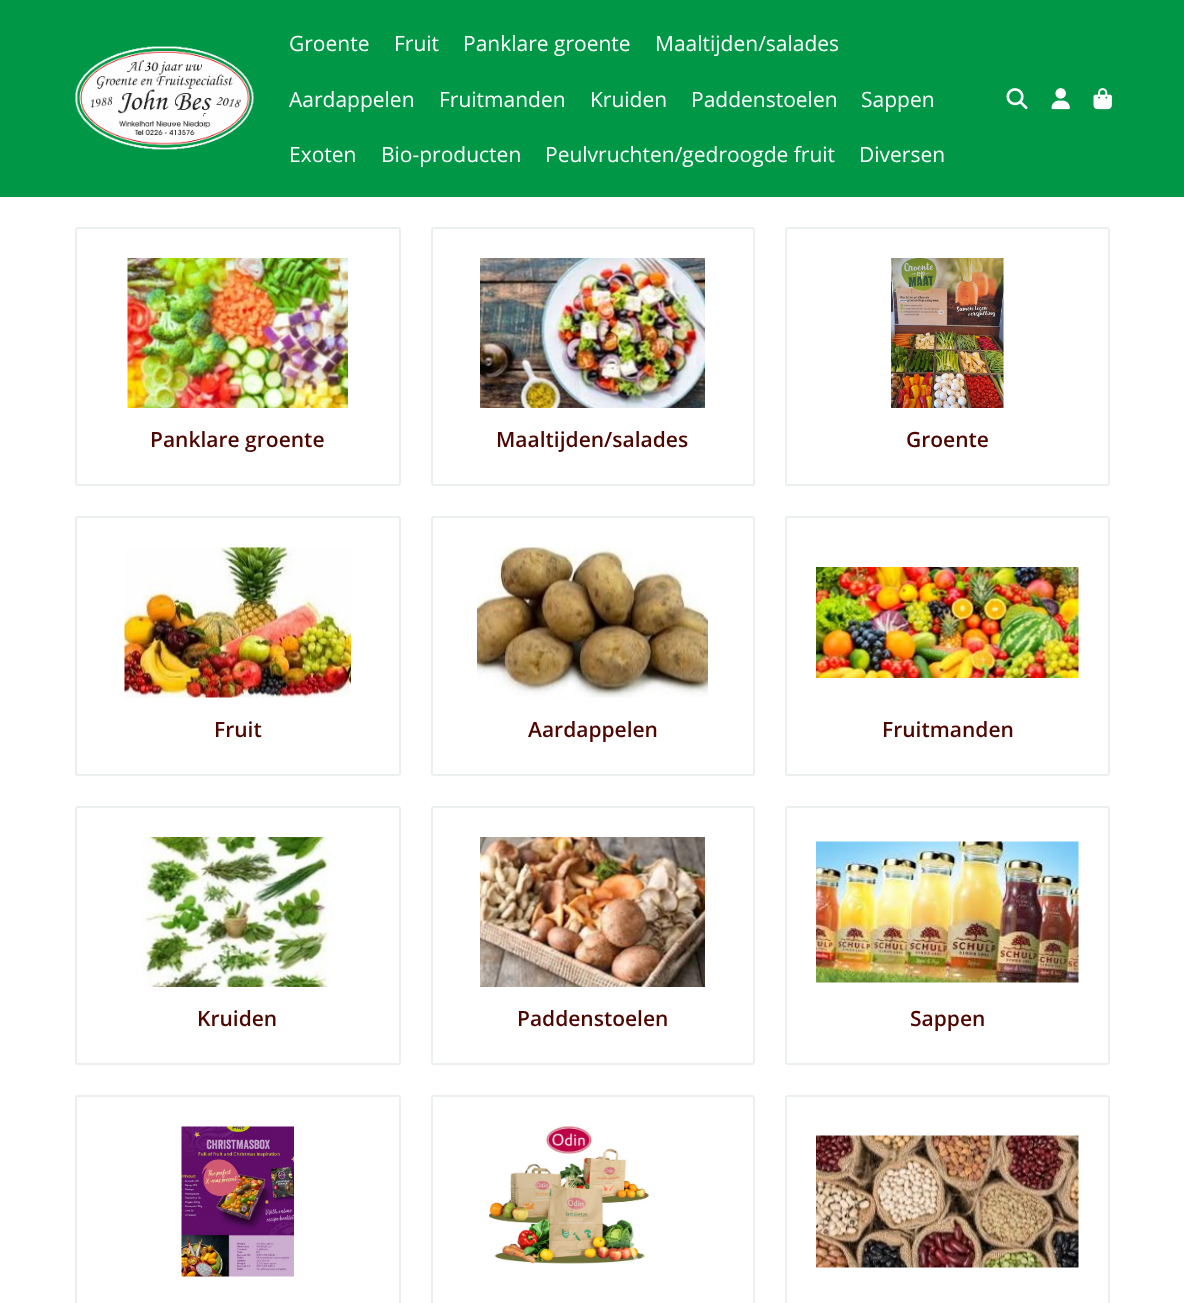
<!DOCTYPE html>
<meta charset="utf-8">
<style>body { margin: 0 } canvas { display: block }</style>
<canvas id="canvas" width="1184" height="1303"></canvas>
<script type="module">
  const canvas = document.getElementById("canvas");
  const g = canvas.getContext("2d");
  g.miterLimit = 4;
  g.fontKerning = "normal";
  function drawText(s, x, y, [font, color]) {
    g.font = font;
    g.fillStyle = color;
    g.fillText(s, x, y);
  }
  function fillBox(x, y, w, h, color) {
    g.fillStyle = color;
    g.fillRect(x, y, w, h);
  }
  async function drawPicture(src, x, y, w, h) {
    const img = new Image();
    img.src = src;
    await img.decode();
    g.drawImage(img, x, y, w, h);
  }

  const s1 = ["21px Open Sans", "#FFFFFF"];
  const s2 = ["600 21px Open Sans", "#4D0700"];

  fillBox(0, 0, 1184, 1303, "#FFFFFF");
  fillBox(0, 0, 1184, 197, "#009846");
  await drawPicture("pic1.png", 75, 46, 179, 104);
  drawText("Groente", 289, 51, s1);
  drawText("Fruit", 394, 51, s1);
  drawText("Panklare groente", 463, 51, s1);
  drawText("Maaltijden/salades", 655, 51, s1);
  drawText("Aardappelen", 289, 107, s1);
  drawText("Fruitmanden", 439, 107, s1);
  drawText("Kruiden", 590, 107, s1);
  drawText("Paddenstoelen", 691, 107, s1);
  drawText("Sappen", 861, 107, s1);
  drawText("Exoten", 289, 162, s1);
  drawText("Bio-producten", 381, 162, s1);
  drawText("Peulvruchten/gedroogde fruit", 545, 162, s1);
  drawText("Diversen", 859, 162, s1);
  await drawPicture("pic2.png", 1006, 88, 22, 22);
  await drawPicture("pic3.png", 1051, 88, 19, 22);
  await drawPicture("pic4.png", 1093, 88, 19, 22);
  g.beginPath();
  g.roundRect(76, 228, 324, 257, 2);
  g.strokeStyle = "#ECEFF0";
  g.lineWidth = 2;
  g.stroke();
  await drawPicture("pic5.png", 127, 258, 221, 150);
  drawText("Panklare groente", 150, 447, s2);
  g.beginPath();
  g.roundRect(432, 228, 322, 257, 2);
  g.stroke();
  await drawPicture("pic6.png", 480, 258, 225, 150);
  drawText("Maaltijden/salades", 496, 447, s2);
  g.beginPath();
  g.roundRect(786, 228, 323, 257, 2);
  g.stroke();
  await drawPicture("pic7.png", 891, 258, 113, 150);
  drawText("Groente", 906, 447, s2);
  g.beginPath();
  g.roundRect(76, 517, 324, 258, 2);
  g.stroke();
  await drawPicture("pic8.png", 124, 547, 227, 151);
  drawText("Fruit", 214, 737, s2);
  g.beginPath();
  g.roundRect(432, 517, 322, 258, 2);
  g.stroke();
  await drawPicture("pic9.png", 477, 547, 231, 151);
  drawText("Aardappelen", 528, 737, s2);
  g.beginPath();
  g.roundRect(786, 517, 323, 258, 2);
  g.stroke();
  await drawPicture("pic10.png", 816, 567, 263, 111);
  drawText("Fruitmanden", 882, 737, s2);
  g.beginPath();
  g.roundRect(76, 807, 324, 257, 2);
  g.stroke();
  await drawPicture("pic11.png", 141, 837, 194, 150);
  drawText("Kruiden", 197, 1026, s2);
  g.beginPath();
  g.roundRect(432, 807, 322, 257, 2);
  g.stroke();
  await drawPicture("pic12.png", 480, 837, 225, 150);
  drawText("Paddenstoelen", 517, 1026, s2);
  g.beginPath();
  g.roundRect(786, 807, 323, 257, 2);
  g.stroke();
  await drawPicture("pic13.png", 816, 841, 263, 142);
  drawText("Sappen", 910, 1026, s2);
  g.beginPath();
  g.roundRect(76, 1096, 324, 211, 2);
  g.stroke();
  await drawPicture("pic14.png", 181, 1126, 113, 151);
  g.beginPath();
  g.roundRect(432, 1096, 322, 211, 2);
  g.stroke();
  await drawPicture("pic15.png", 489, 1126, 161, 138);
  g.beginPath();
  g.roundRect(786, 1096, 323, 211, 2);
  g.stroke();
  await drawPicture("pic16.png", 816, 1135, 263, 133);
</script>
